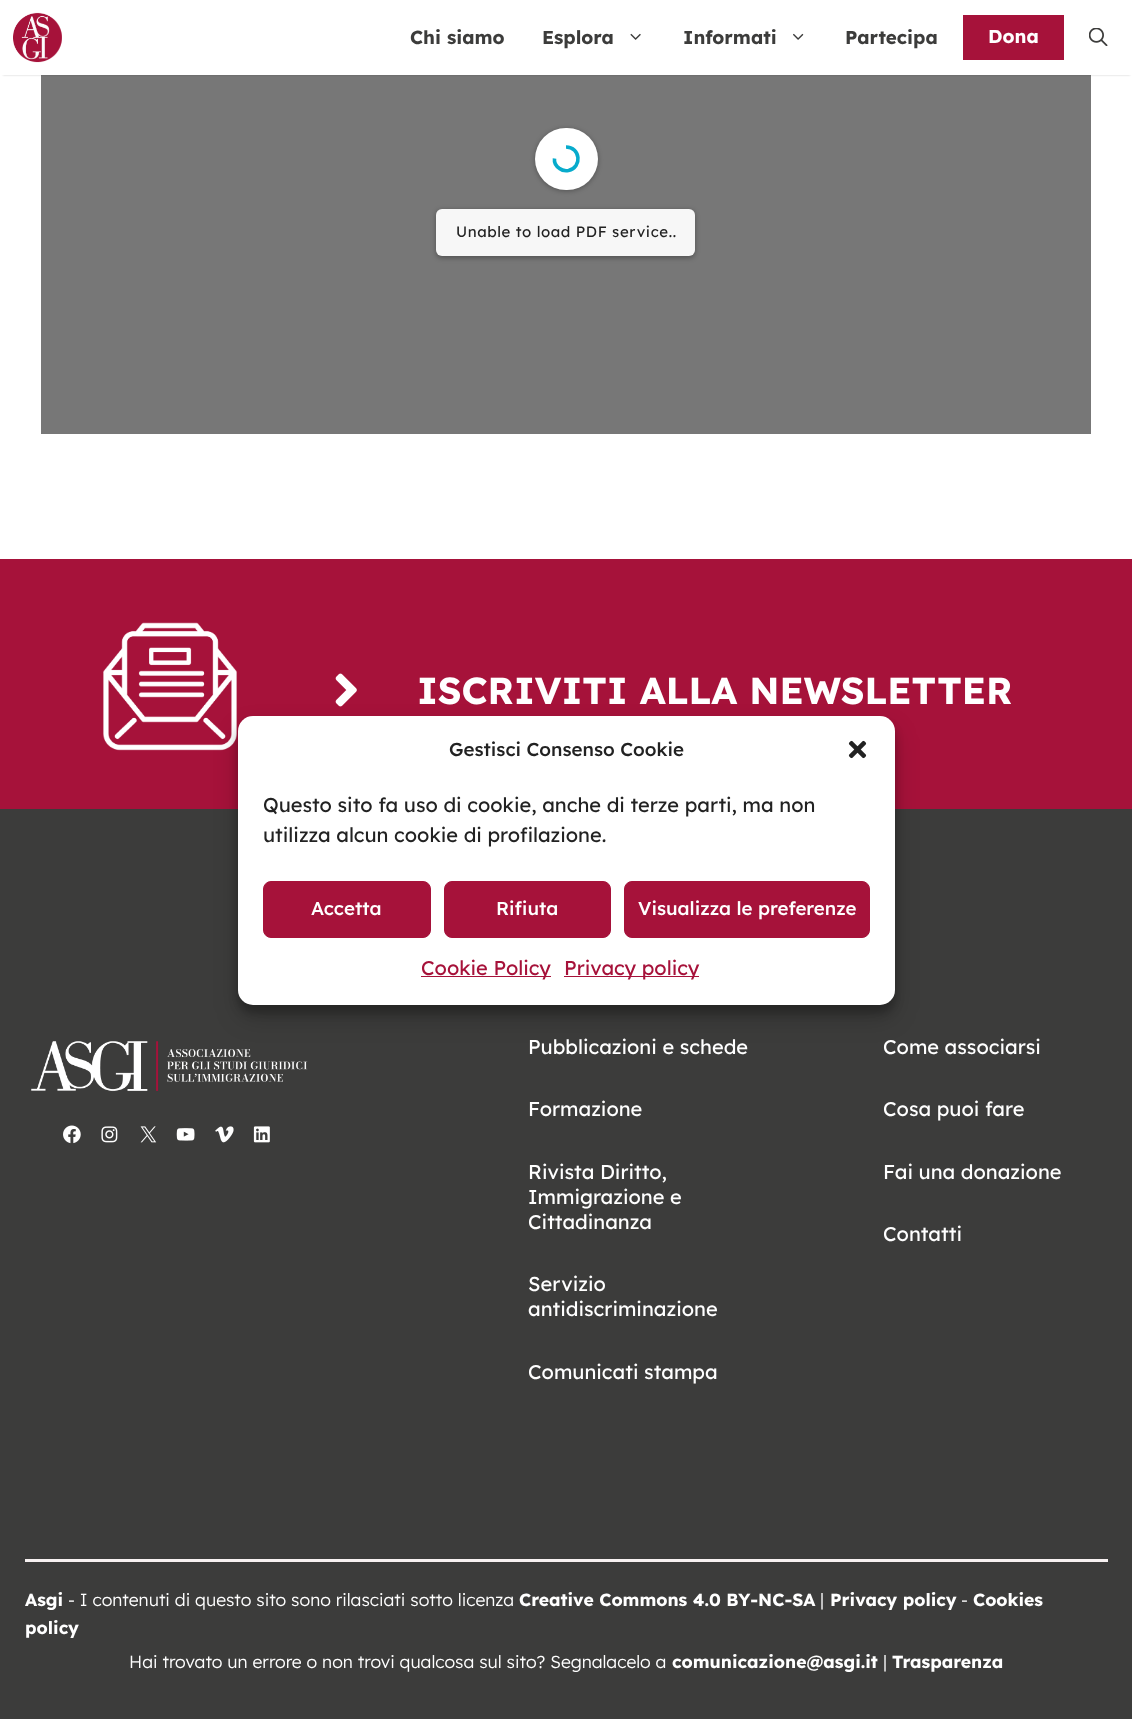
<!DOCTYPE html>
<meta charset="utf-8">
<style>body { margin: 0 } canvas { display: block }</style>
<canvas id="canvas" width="1132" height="1719"></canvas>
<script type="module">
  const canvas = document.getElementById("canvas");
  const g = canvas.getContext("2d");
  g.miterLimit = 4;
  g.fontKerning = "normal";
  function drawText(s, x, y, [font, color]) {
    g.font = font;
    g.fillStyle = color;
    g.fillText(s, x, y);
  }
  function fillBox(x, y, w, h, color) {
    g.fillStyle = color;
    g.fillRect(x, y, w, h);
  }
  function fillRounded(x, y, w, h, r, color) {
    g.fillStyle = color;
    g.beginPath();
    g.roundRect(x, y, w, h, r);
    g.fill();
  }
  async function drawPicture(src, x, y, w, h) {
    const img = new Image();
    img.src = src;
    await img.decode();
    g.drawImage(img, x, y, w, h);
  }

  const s1 = ["bold 18.75px Lexend", "#3C3C3B"];
  const s2 = ["bold 18.75px Lexend", "#FFFFFF"];
  const s3 = ["15px Lexend", "#222222"];
  const s4 = ["bold 37.5px Lexend", "#FFFFFF"];
  const s5 = ["500 18.75px Lexend", "#222222"];
  const s6 = ["20px Lexend", "#222222"];
  const s7 = ["500 18.75px Lexend", "#FFFFFF"];
  const s8 = ["20px Lexend", "#A6123A"];
  const s9 = ["20px Lexend", "#FFFFFF"];
  const s10 = ["bold 17.5px Lexend", "#FFFFFF"];
  const s11 = ["300 17.5px Lexend", "#FFFFFF"];

  fillBox(0, 0, 1132, 1719, "#FFFFFF");
  fillBox(41, 75, 1050, 359, "#777777");
  g.fillStyle = "rgba(0, 0, 0, 0.2)";
  g.filter = "blur(1px)";
  g.beginPath();
  g.rect(3, 5, 1127, 70);
  g.fill();
  g.filter = "none";
  fillBox(1, 3, 1131, 72, "#FFFFFF");
  await drawPicture("pic1.png", 13, 12, 49, 51);
  drawText("Chi siamo", 410, 44, s1);
  drawText("Esplora", 542, 44, s1);
  await drawPicture("pic2.png", 630, 33, 11, 7);
  drawText("Informati", 683, 44, s1);
  await drawPicture("pic3.png", 793, 33, 11, 7);
  drawText("Partecipa", 845, 44, s1);
  fillBox(963, 15, 101, 45, "#A6123A");
  drawText("Dona", 988, 43, s2);
  await drawPicture("pic4.png", 1089, 28, 19, 18);
  g.fillStyle = "rgba(0, 0, 0, 0.3)";
  g.filter = "blur(2.5px)";
  g.beginPath();
  g.roundRect(535, 129, 63, 62, 31);
  g.fill();
  g.filter = "none";
  fillRounded(535, 128, 63, 62, 31, "#FFFFFF");
  g.beginPath();
  g.moveTo(566, 147);
  g.bezierCurveTo(580.5, 147, 582.5, 167.5, 568.5, 170.5);
  g.bezierCurveTo(565.5, 171, 562, 170.5, 559.5, 168.5);
  g.bezierCurveTo(556.5, 166.5, 554, 162.5, 554.5, 158.5);
  g.strokeStyle = "#07ABCC";
  g.lineWidth = 3.6;
  g.stroke();
  g.fillStyle = "rgba(0, 0, 0, 0.3)";
  g.filter = "blur(2.5px)";
  g.beginPath();
  g.roundRect(436, 210, 259, 48, 6);
  g.fill();
  g.filter = "none";
  fillRounded(436, 209, 259, 47, 6, "#F7F7F7");
  g.letterSpacing = "0.6px";
  drawText("Unable to load PDF service..", 456, 237, s3);
  fillBox(0, 559, 1132, 250, "#A6123A");
  await drawPicture("pic5.png", 103, 622, 134, 129);
  await drawPicture("pic6.png", 335, 673, 22, 34);
  g.letterSpacing = "0px";
  drawText("ISCRIVITI ALLA NEWSLETTER", 417, 704, s4);
  fillBox(0, 809, 1132, 910, "#3C3C3B");
  g.fillStyle = "rgba(0, 0, 0, 0.23)";
  g.filter = "blur(4px)";
  g.beginPath();
  g.roundRect(238, 724, 657, 289, 15);
  g.fill();
  g.filter = "none";
  await drawPicture("pic8.png", 31, 1041, 277, 51);
  g.fillStyle = "rgba(0, 0, 0, 0.19)";
  g.filter = "blur(12.5px)";
  g.beginPath();
  g.roundRect(238, 729, 657, 289, 15);
  g.fill();
  g.filter = "none";
  fillRounded(238, 716, 657, 289, 15, "#FFFFFF");
  drawText("Gestisci Consenso Cookie", 449, 756, s5);
  await drawPicture("pic7.png", 848, 740, 19, 19);
  drawText("Questo sito fa uso di cookie, anche di terze parti, ma non", 263, 812, s6);
  drawText("utilizza alcun cookie di profilazione.", 263, 842, s6);
  g.fillStyle = "#A6123A";
  g.beginPath();
  g.roundRect(263.5, 881.5, 167, 56, 7.5);
  g.fill();
  g.strokeStyle = "#A6123A";
  g.lineWidth = 1;
  g.stroke();
  drawText("Accetta", 311, 915, s7);
  g.fillStyle = "#A6123A";
  g.beginPath();
  g.roundRect(444.5, 881.5, 166, 56, 7.5);
  g.fill();
  g.stroke();
  drawText("Rifiuta", 496, 915, s7);
  g.fillStyle = "#A6123A";
  g.beginPath();
  g.roundRect(624.5, 881.5, 245, 56, 7.5);
  g.fill();
  g.stroke();
  drawText("Visualizza le preferenze", 638, 915, s7);
  fillBox(421, 976, 130, 1, "#A6123A");
  drawText("Cookie Policy", 421, 975, s8);
  fillBox(564, 976, 135, 1, "#A6123A");
  drawText("Privacy policy", 564, 975, s8);
  await drawPicture("pic9.png", 63, 1125, 18, 19);
  await drawPicture("pic10.png", 101, 1126, 17, 17);
  await drawPicture("pic11.png", 140, 1126, 17, 17);
  await drawPicture("pic12.png", 176, 1128, 19, 13);
  await drawPicture("pic13.png", 215, 1126, 19, 17);
  await drawPicture("pic14.png", 253, 1126, 17, 17);
  drawText("Pubblicazioni e schede", 528, 1054, s9);
  drawText("Formazione", 528, 1116, s9);
  drawText("Rivista Diritto,", 528, 1179, s9);
  drawText("Immigrazione e", 528, 1204, s9);
  drawText("Cittadinanza", 528, 1229, s9);
  drawText("Servizio", 528, 1291, s9);
  drawText("antidiscriminazione", 528, 1316, s9);
  drawText("Comunicati stampa", 528, 1379, s9);
  drawText("Come associarsi", 883, 1054, s9);
  drawText("Cosa puoi fare", 883, 1116, s9);
  drawText("Fai una donazione", 883, 1179, s9);
  drawText("Contatti", 883, 1241, s9);
  fillBox(25, 1559, 1083, 3, "#F7F1F1");
  drawText("Asgi", 25, 1606, s10);
  drawText("- I contenuti di questo sito sono rilasciati sotto licenza", 68, 1606, s11);
  drawText("Creative Commons 4.0 BY-NC-SA", 519, 1606, s10);
  drawText("|", 820, 1606, s11);
  drawText("Privacy policy", 830, 1606, s10);
  drawText("-", 961, 1606, s11);
  drawText("Cookies", 973, 1606, s10);
  drawText("policy", 25, 1634, s10);
  drawText("Hai trovato un errore o non trovi qualcosa sul sito? Segnalacelo a", 129, 1668, s11);
  drawText("comunicazione@asgi.it", 672, 1668, s10);
  drawText("|", 883, 1668, s11);
  drawText("Trasparenza", 892, 1668, s10);
</script>
